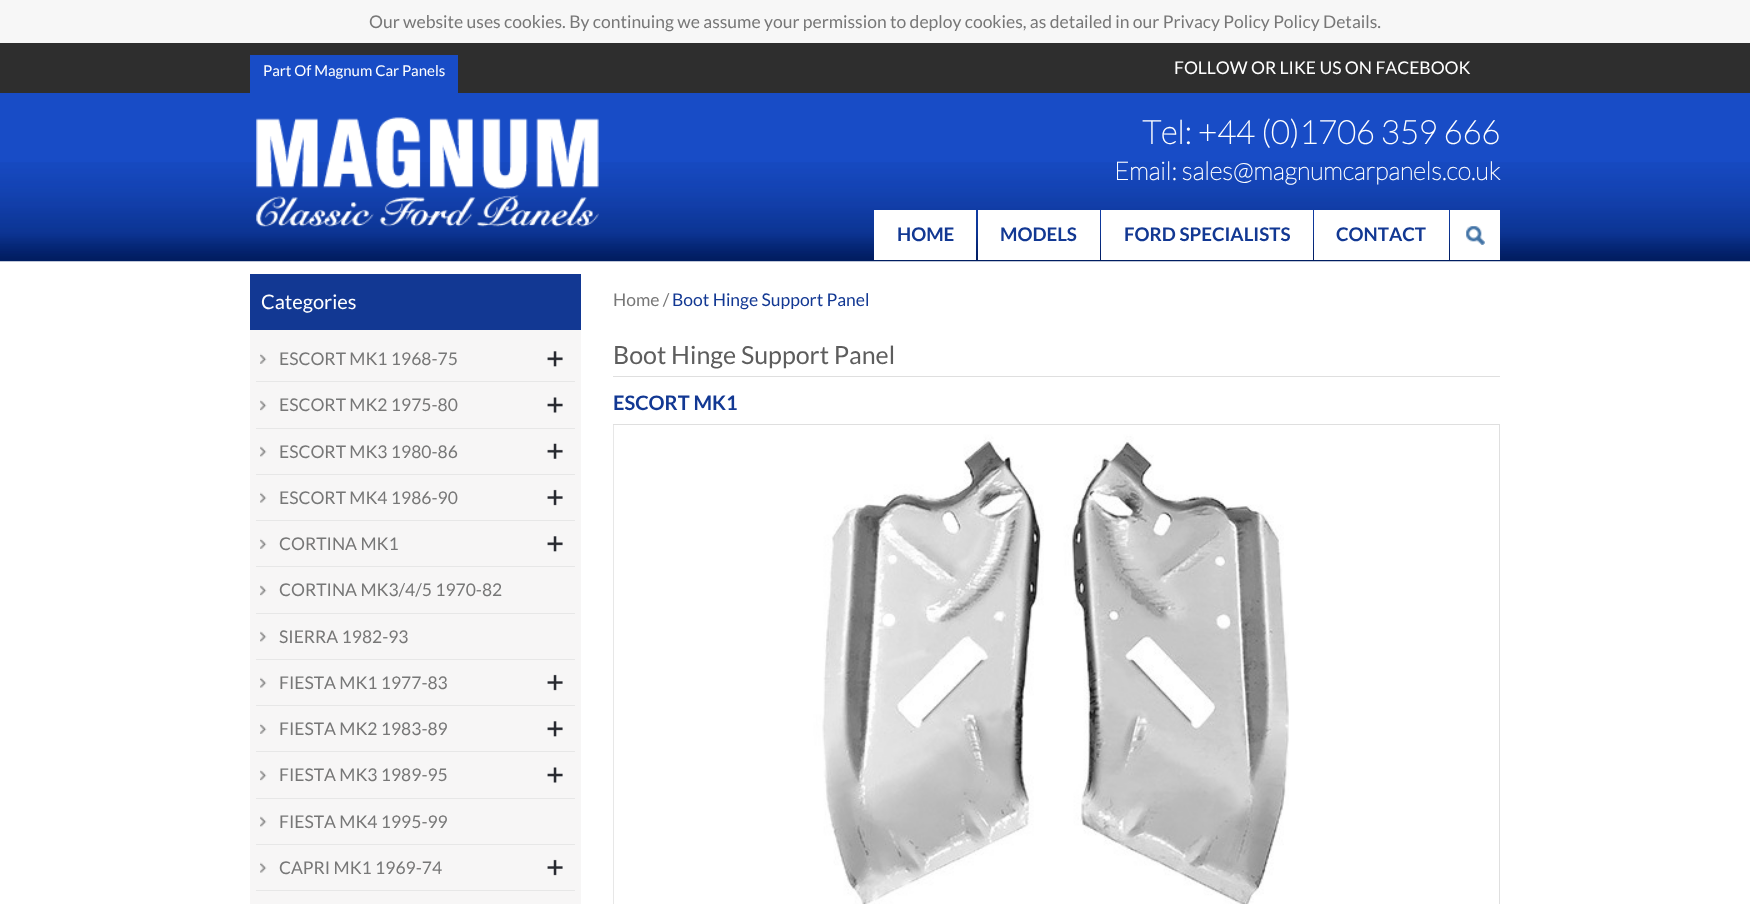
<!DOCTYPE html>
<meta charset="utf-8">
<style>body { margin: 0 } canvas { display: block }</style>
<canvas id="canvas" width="1750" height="904"></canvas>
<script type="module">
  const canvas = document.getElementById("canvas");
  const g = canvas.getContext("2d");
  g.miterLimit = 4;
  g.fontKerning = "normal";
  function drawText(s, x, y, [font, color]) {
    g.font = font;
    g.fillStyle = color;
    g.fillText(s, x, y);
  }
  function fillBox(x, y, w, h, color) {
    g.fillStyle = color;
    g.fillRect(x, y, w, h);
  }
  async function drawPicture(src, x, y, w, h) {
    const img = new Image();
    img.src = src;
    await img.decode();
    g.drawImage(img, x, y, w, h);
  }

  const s1 = ["17.5px Lato", "#777777"];
  const s2 = ["15px Lato", "#FFFFFF"];
  const s3 = ["17.5px Lato", "#FFFFFF"];
  const s4 = ["bold 32.5px 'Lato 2'", "#FFFFFF"];
  const s5 = ["bold 25px 'Lato 2'", "#FFFFFF"];
  const s6 = ["bold 18.75px Lato", "#123893"];
  const s7 = ["20px Lato", "#FFFFFF"];
  const s8 = ["17.5px Lato", "#123893"];
  const s9 = ["25px Lato", "#5D5D5D"];
  const s10 = ["bold 20px Lato", "#123893"];

  fillBox(0, 0, 1750, 904, "#FFFFFF");
  fillBox(0, 0, 1750, 43, "#F7F7F7");
  drawText("Our website uses cookies. By continuing we assume your permission to deploy cookies, as detailed in our Privacy Policy Policy Details.", 369, 28, s1);
  fillBox(0, 93, 1750, 69, "#184CC6");
  await drawPicture("pic1.png", 0, 162, 1750, 100);
  fillBox(0, 43, 1750, 50, "#2E2E2E");
  fillBox(250, 55, 208, 38, "#184CC6");
  drawText("Part Of Magnum Car Panels", 263, 76, s2);
  drawText("FOLLOW OR LIKE US ON FACEBOOK", 1174, 74, s3);
  await drawPicture("pic2.png", 256, 117, 343, 110);
  drawText("Tel: +44 (0)1706 359 666", 1142, 144, s4);
  drawText("Email: sales@magnumcarpanels.co.uk", 1114, 180, s5);
  fillBox(874, 210, 102, 50, "#FFFFFF");
  drawText("HOME", 897, 241, s6);
  fillBox(978, 210, 122, 50, "#FFFFFF");
  drawText("MODELS", 1000, 241, s6);
  fillBox(1101, 210, 212, 50, "#FFFFFF");
  drawText("FORD SPECIALISTS", 1124, 241, s6);
  fillBox(1314, 210, 135, 50, "#FFFFFF");
  drawText("CONTACT", 1336, 241, s6);
  fillBox(1450, 210, 50, 50, "#FFFFFF");
  await drawPicture("pic3.png", 1466, 226, 19, 19);
  fillBox(250, 274, 331, 56, "#123893");
  drawText("Categories", 261, 309, s7);
  fillBox(250, 330, 331, 574, "#F7F6F6");
  await drawPicture("pic4.png", 260, 353, 7, 11);
  fillBox(256, 381, 319, 1, "#E7E7E7");
  drawText("ESCORT MK1 1968-75", 279, 365, s1);
  await drawPicture("pic5.png", 547, 351, 16, 16);
  await drawPicture("pic6.png", 260, 400, 7, 11);
  fillBox(256, 428, 319, 1, "#E7E7E7");
  drawText("ESCORT MK2 1975-80", 279, 411, s1);
  await drawPicture("pic7.png", 547, 397, 16, 16);
  await drawPicture("pic8.png", 260, 446, 7, 11);
  fillBox(256, 474, 319, 1, "#E7E7E7");
  drawText("ESCORT MK3 1980-86", 279, 458, s1);
  await drawPicture("pic9.png", 547, 443, 16, 16);
  await drawPicture("pic10.png", 260, 492, 7, 11);
  fillBox(256, 520, 319, 1, "#E7E7E7");
  drawText("ESCORT MK4 1986-90", 279, 504, s1);
  await drawPicture("pic11.png", 547, 489, 16, 17);
  await drawPicture("pic4.png", 260, 538, 7, 11);
  fillBox(256, 566, 319, 1, "#E7E7E7");
  drawText("CORTINA MK1", 279, 550, s1);
  await drawPicture("pic5.png", 547, 536, 16, 16);
  await drawPicture("pic12.png", 260, 585, 7, 11);
  fillBox(256, 613, 319, 1, "#E7E7E7");
  drawText("CORTINA MK3/4/5 1970-82", 279, 596, s1);
  await drawPicture("pic8.png", 260, 631, 7, 11);
  fillBox(256, 659, 319, 1, "#E7E7E7");
  drawText("SIERRA 1982-93", 279, 643, s1);
  await drawPicture("pic10.png", 260, 677, 7, 11);
  fillBox(256, 705, 319, 1, "#E7E7E7");
  drawText("FIESTA MK1 1977-83", 279, 689, s1);
  await drawPicture("pic11.png", 547, 674, 16, 17);
  await drawPicture("pic4.png", 260, 723, 7, 11);
  fillBox(256, 751, 319, 1, "#E7E7E7");
  drawText("FIESTA MK2 1983-89", 279, 735, s1);
  await drawPicture("pic5.png", 547, 721, 16, 16);
  await drawPicture("pic6.png", 260, 770, 7, 11);
  fillBox(256, 798, 319, 1, "#E7E7E7");
  drawText("FIESTA MK3 1989-95", 279, 781, s1);
  await drawPicture("pic7.png", 547, 767, 16, 16);
  await drawPicture("pic8.png", 260, 816, 7, 11);
  fillBox(256, 844, 319, 1, "#E7E7E7");
  drawText("FIESTA MK4 1995-99", 279, 828, s1);
  await drawPicture("pic10.png", 260, 862, 7, 11);
  fillBox(256, 890, 319, 1, "#E7E7E7");
  drawText("CAPRI MK1 1969-74", 279, 874, s1);
  await drawPicture("pic11.png", 547, 859, 16, 17);
  drawText("Home /", 613, 306, s1);
  drawText("Boot Hinge Support Panel", 672, 306, s8);
  fillBox(613, 376, 887, 1, "#DFDFDF");
  drawText("Boot Hinge Support Panel", 613, 364, s9);
  drawText("ESCORT MK1", 613, 410, s10);
  g.strokeStyle = "#DFDFDF";
  g.strokeRect(613.5, 424.5, 886, 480);
  await drawPicture("pic13.png", 613, 425, 676, 479);
</script>
